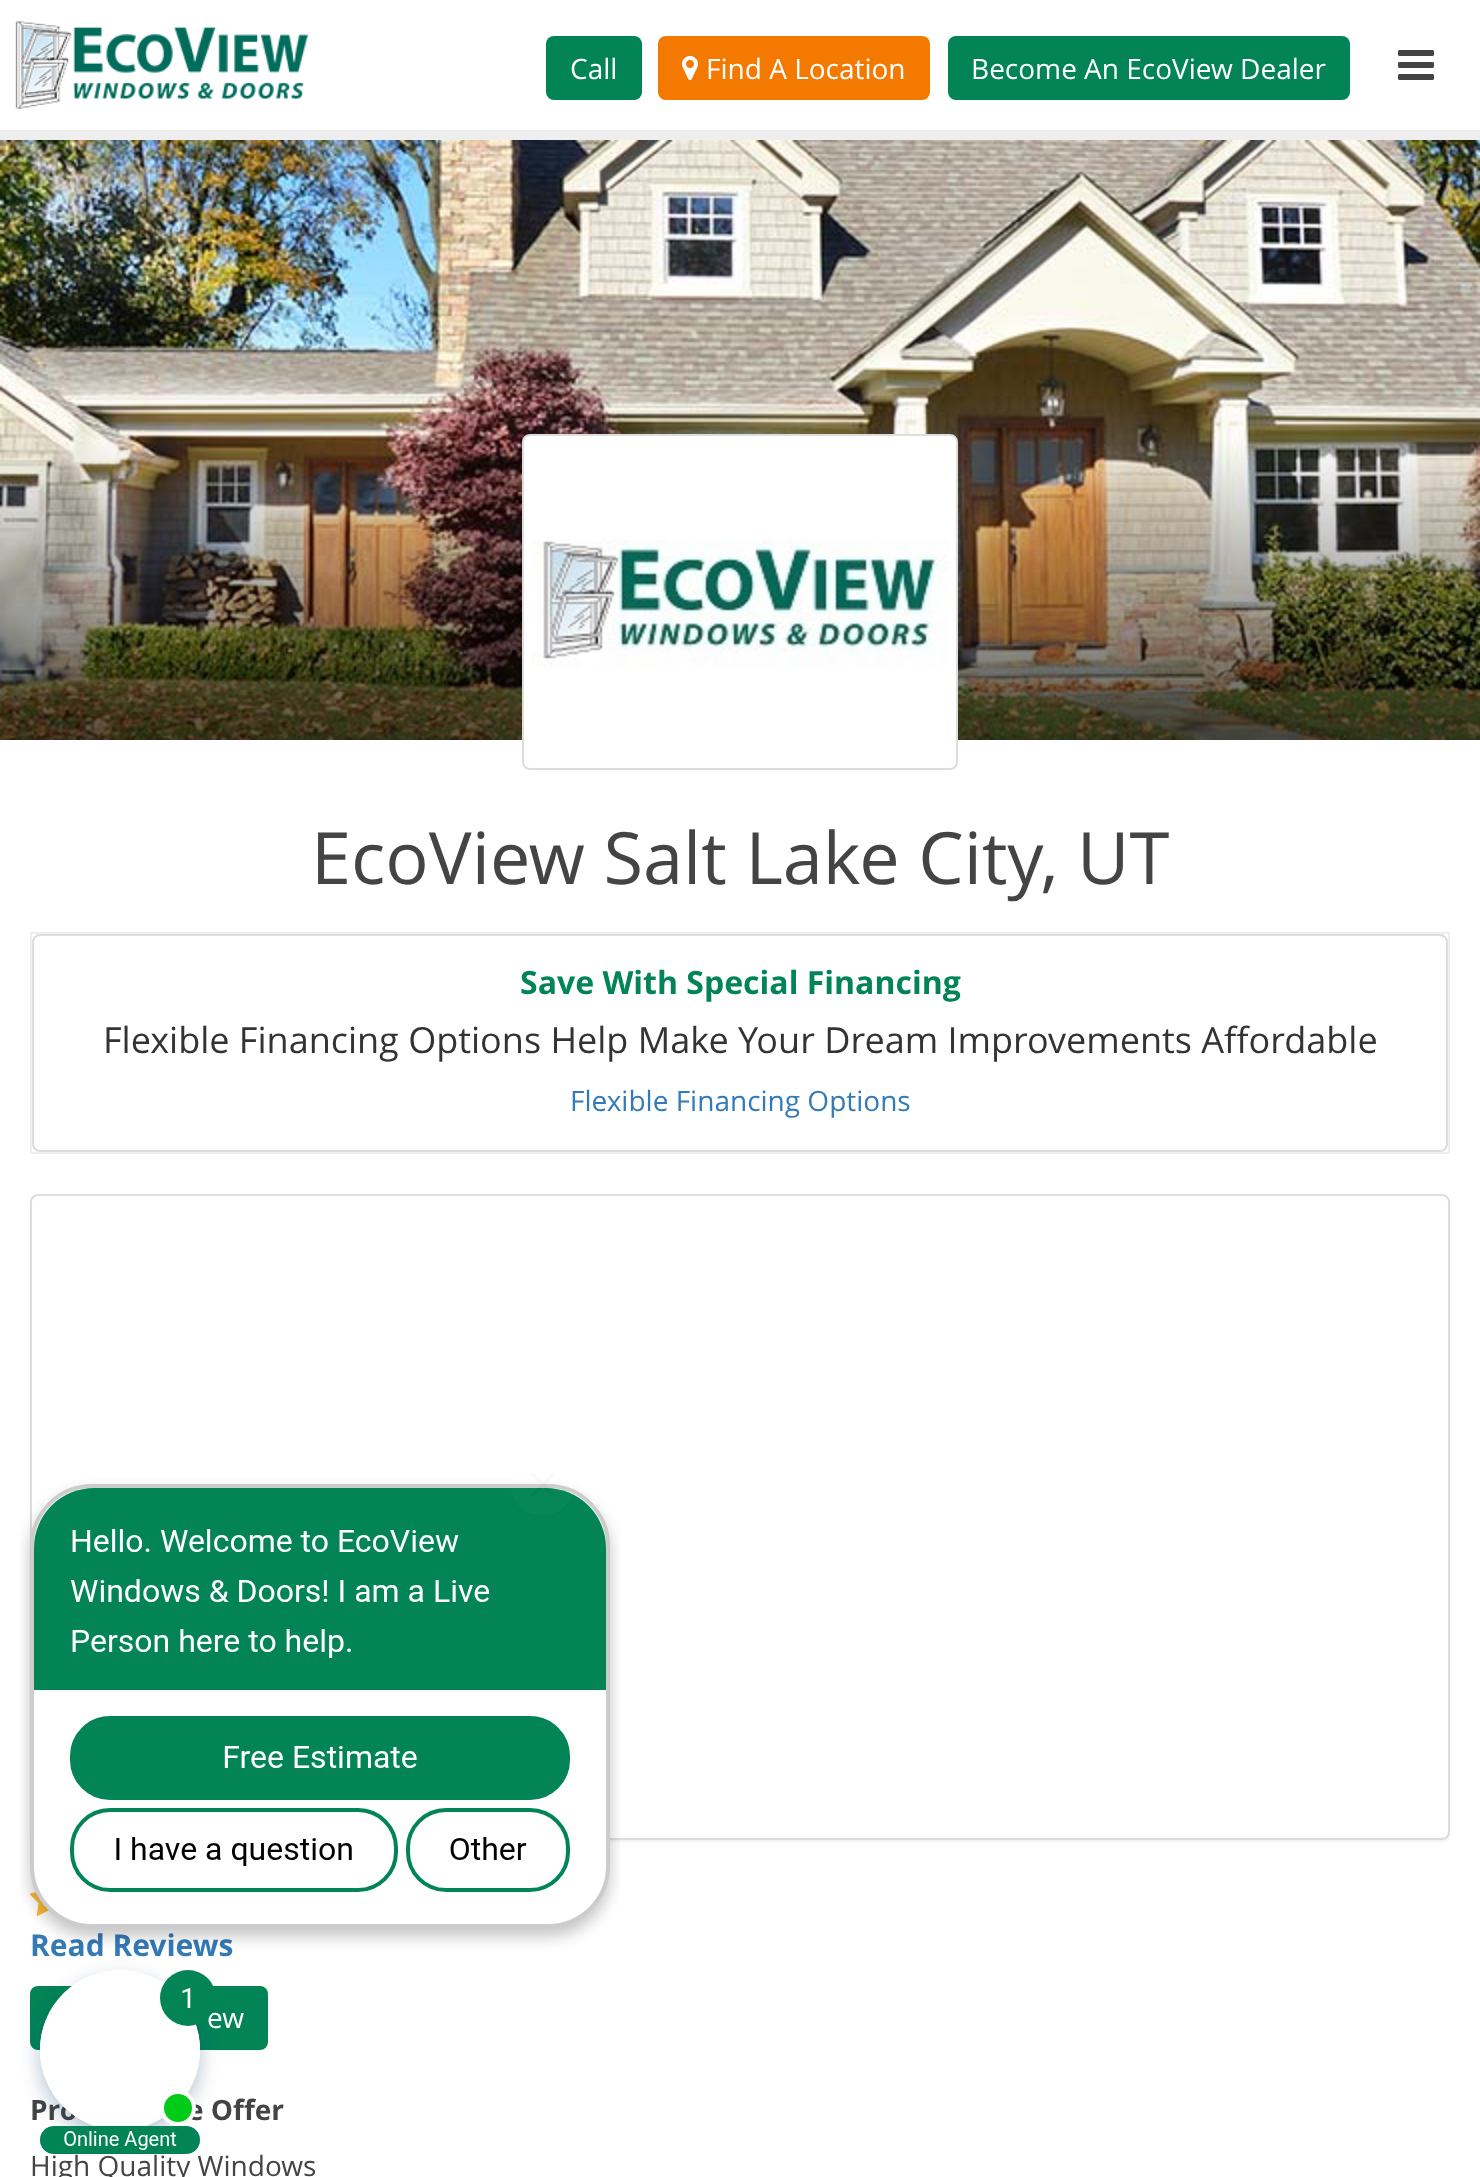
<!DOCTYPE html>
<meta charset="utf-8">
<style>body { margin: 0 } canvas { display: block }</style>
<canvas id="canvas" width="1480" height="2177"></canvas>
<script type="module">
  const canvas = document.getElementById("canvas");
  const g = canvas.getContext("2d");
  g.miterLimit = 4;
  g.fontKerning = "normal";
  function drawText(s, x, y, [font, color]) {
    g.font = font;
    g.fillStyle = color;
    g.fillText(s, x, y);
  }
  function fillBox(x, y, w, h, color) {
    g.fillStyle = color;
    g.fillRect(x, y, w, h);
  }
  function fillRounded(x, y, w, h, r, color) {
    g.fillStyle = color;
    g.beginPath();
    g.roundRect(x, y, w, h, r);
    g.fill();
  }
  async function drawPicture(src, x, y, w, h) {
    const img = new Image();
    img.src = src;
    await img.decode();
    g.drawImage(img, x, y, w, h);
  }

  const s1 = ["28px Open Sans", "#FFFFFF"];
  const s2 = ["72px Open Sans", "#444444"];
  const s3 = ["bold 32px Open Sans", "#028457"];
  const s4 = ["36px Open Sans", "#333333"];
  const s5 = ["28px Open Sans", "#337AB7"];
  const s6 = ["bold 30px Open Sans", "#337AB7"];
  const s7 = ["bold 28px Open Sans", "#444444"];
  const s8 = ["28px Open Sans", "#444444"];

  fillBox(0, 0, 1480, 2177, "#FFFFFF");
  fillBox(0, 130, 1480, 10, "#EEEEEE");
  await drawPicture("pic1.png", 15, 21, 294, 88);
  fillRounded(546, 36, 96, 64, 8, "#028457");
  drawText("Call", 570, 79, s1);
  fillRounded(658, 36, 272, 64, 8, "#F47900");
  await drawPicture("pic2.png", 682, 56, 16, 24);
  drawText("Find A Location", 706, 79, s1);
  fillRounded(948, 36, 402, 64, 8, "#028457");
  drawText("Become An EcoView Dealer", 971, 79, s1);
  await drawPicture("pic3.png", 1398, 50, 36, 30);
  await drawPicture("pic4.png", 0, 140, 1480, 600);
  g.beginPath();
  g.roundRect(523, 435, 434, 334, 7);
  g.fill();
  g.strokeStyle = "#DDDDDD";
  g.lineWidth = 2;
  g.stroke();
  await drawPicture("pic5.png", 532, 539, 416, 129);
  drawText("EcoView Salt Lake City, UT", 311, 884, s2);
  g.strokeStyle = "#EEEEEE";
  g.strokeRect(31, 933, 1418, 220);
  g.beginPath();
  g.roundRect(33, 935, 1414, 216, 7);
  g.strokeStyle = "#DDDDDD";
  g.stroke();
  drawText("Save With Special Financing", 520, 994, s3);
  drawText("Flexible Financing Options Help Make Your Dream Improvements Affordable", 103, 1053, s4);
  drawText("Flexible Financing Options", 570, 1111, s5);
  g.fillStyle = "rgba(0, 0, 0, 0.05)";
  g.filter = "blur(1px)";
  g.beginPath();
  g.roundRect(30, 1196, 1420, 646, 8);
  g.fill();
  g.filter = "none";
  g.fillStyle = "#FFFFFF";
  g.beginPath();
  g.roundRect(31, 1195, 1418, 644, 7);
  g.fill();
  g.stroke();
  await drawPicture("pic6.png", 30, 1892, 21, 24);
  drawText("Read Reviews", 30, 1956, s6);
  fillRounded(30, 1986, 238, 64, 8, "#028457");
  drawText("ew", 207, 2028, s1);
  drawText("Pro", 30, 2120, s7);
  drawText("e Offer", 187, 2120, s7);
  drawText("High Quality Windows", 30, 2176, s8);
  await drawPicture("pic7.png", 20, 1473, 600, 681);
</script>
